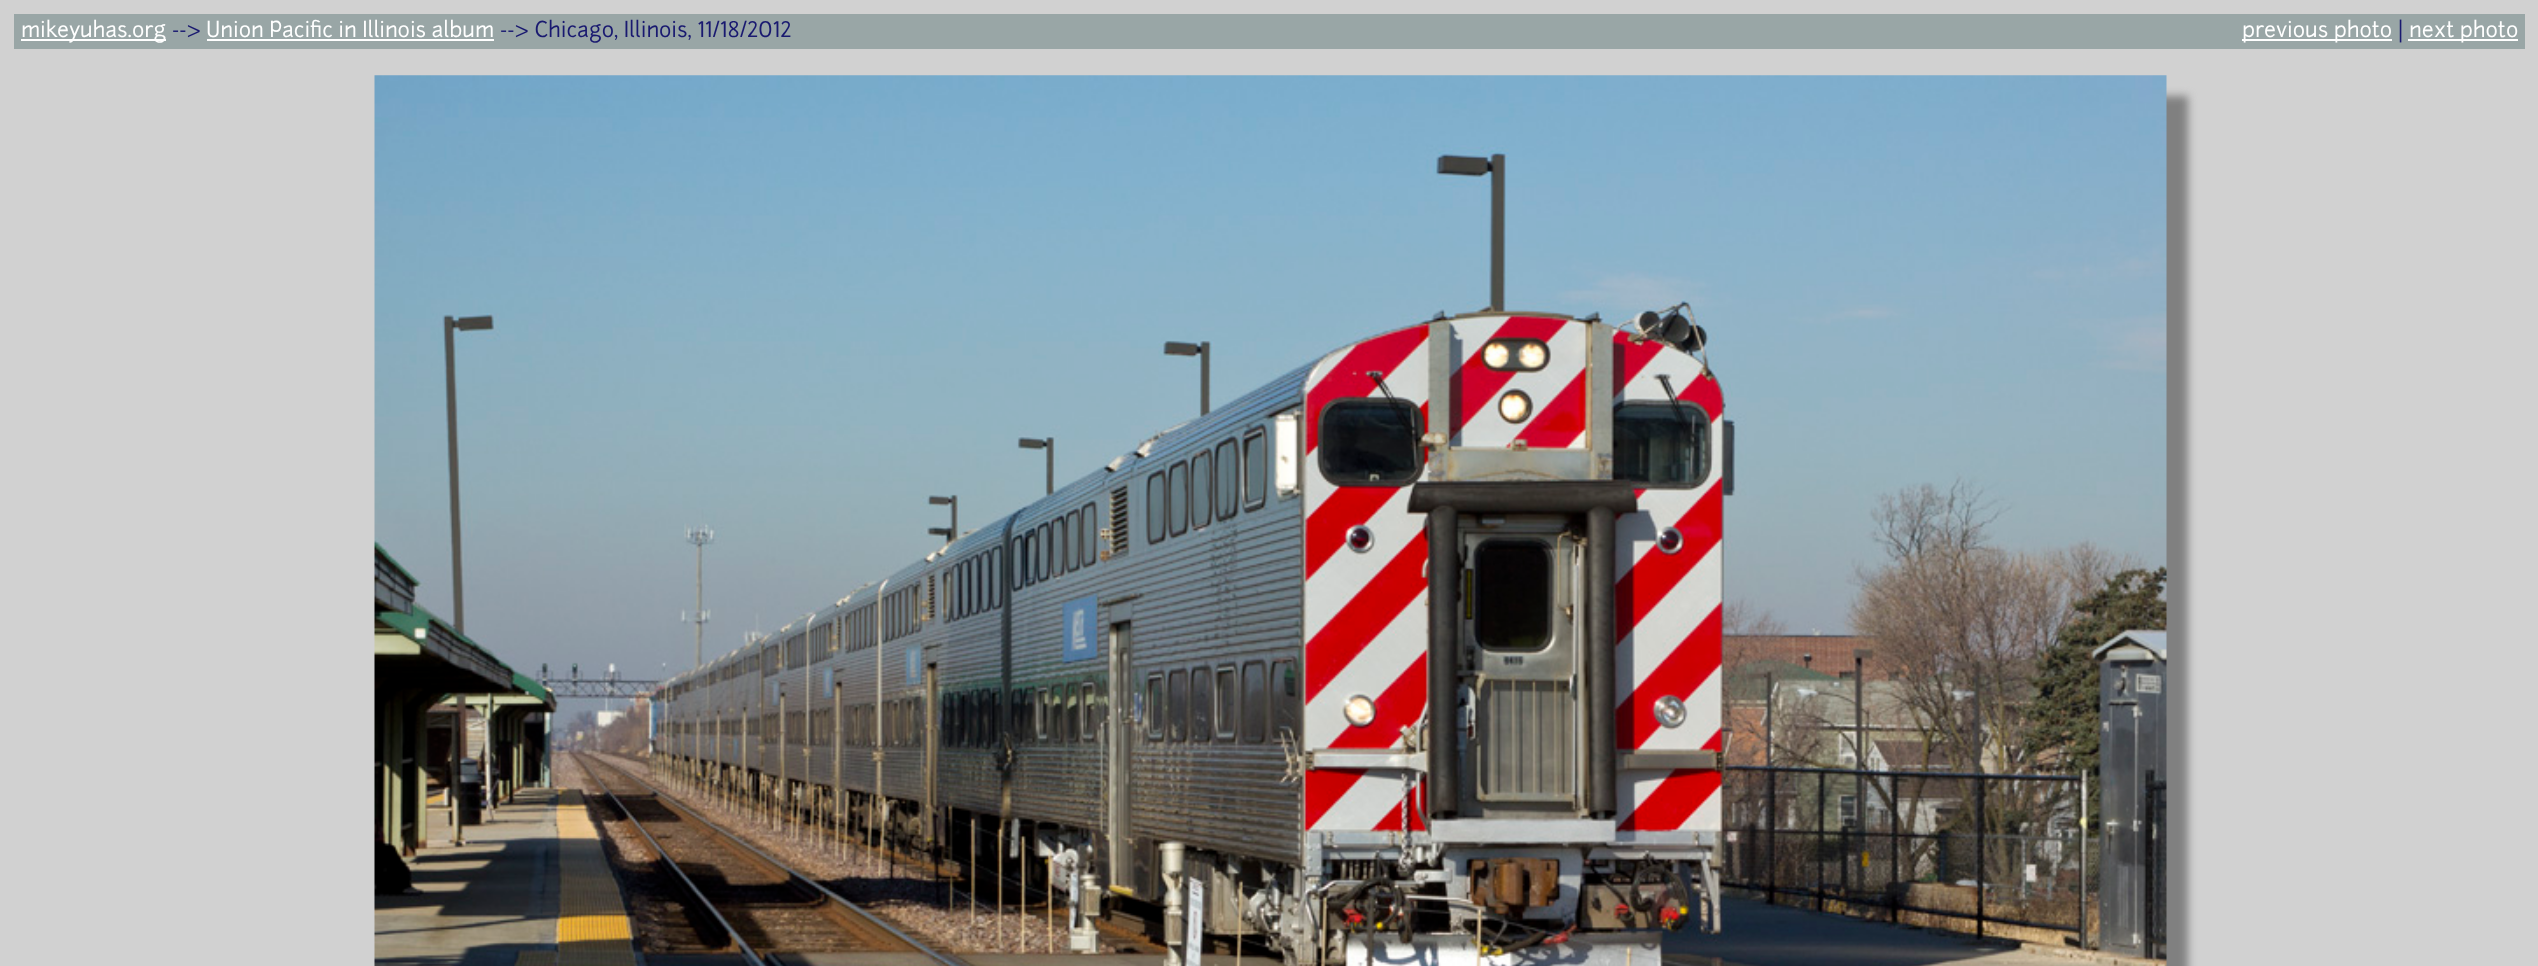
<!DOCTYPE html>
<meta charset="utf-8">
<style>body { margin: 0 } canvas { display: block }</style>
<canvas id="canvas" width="2538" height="966"></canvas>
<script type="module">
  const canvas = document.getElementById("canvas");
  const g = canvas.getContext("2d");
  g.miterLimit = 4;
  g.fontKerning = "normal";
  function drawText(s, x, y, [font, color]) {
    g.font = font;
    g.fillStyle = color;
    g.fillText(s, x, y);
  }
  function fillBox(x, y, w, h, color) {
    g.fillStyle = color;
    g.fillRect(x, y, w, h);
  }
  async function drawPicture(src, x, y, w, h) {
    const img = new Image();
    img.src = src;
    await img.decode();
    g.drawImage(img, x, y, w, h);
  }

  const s1 = ["21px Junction", "#FFFFFF"];
  const s2 = ["21px Junction", "#191970"];

  fillBox(0, 0, 2538, 966, "#D1D1D1");
  fillBox(14, 14, 2511, 35, "#99A6A6");
  fillBox(21, 39, 145, 2, "#FFFFFF");
  drawText("mikeyuhas.org", 21, 37, s1);
  drawText("-->", 172, 37, s2);
  drawText("Union Pacific in Illinois album", 206, 37, s1);
  fillBox(207, 39, 287, 2, "#FFFFFF");
  drawText("--> Chicago, Illinois, 11/18/2012", 500, 37, s2);
  fillBox(2242, 39, 150, 2, "#FFFFFF");
  drawText("previous photo", 2242, 37, s1);
  drawText("|", 2398, 37, s2);
  fillBox(2408, 39, 110, 2, "#FFFFFF");
  drawText("next photo", 2409, 37, s1);
  g.fillStyle = "#808080";
  g.filter = "blur(4.5px)";
  g.beginPath();
  g.rect(396, 96, 1792, 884);
  g.fill();
  g.filter = "none";
  await drawPicture("pic1.png", 374, 75, 1793, 891);
</script>
